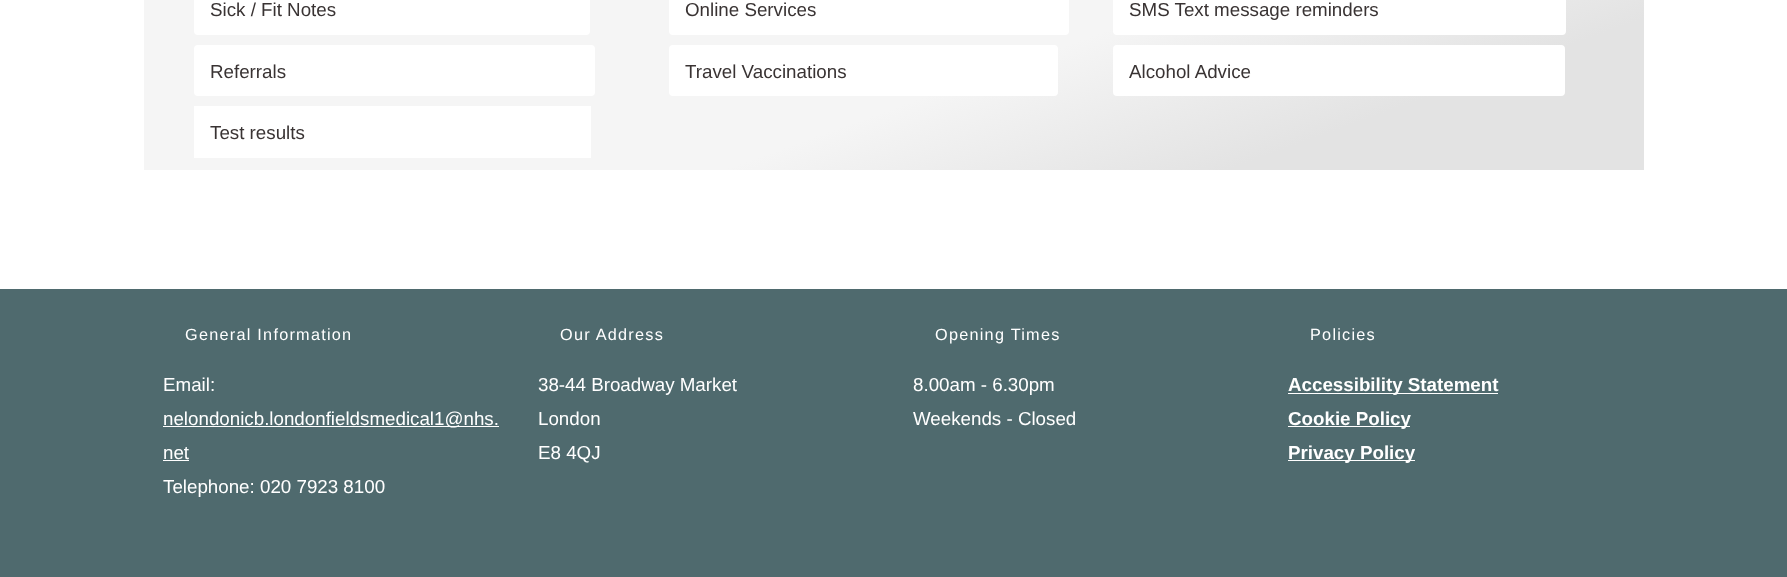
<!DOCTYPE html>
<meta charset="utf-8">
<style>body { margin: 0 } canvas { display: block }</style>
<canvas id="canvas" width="1787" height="577"></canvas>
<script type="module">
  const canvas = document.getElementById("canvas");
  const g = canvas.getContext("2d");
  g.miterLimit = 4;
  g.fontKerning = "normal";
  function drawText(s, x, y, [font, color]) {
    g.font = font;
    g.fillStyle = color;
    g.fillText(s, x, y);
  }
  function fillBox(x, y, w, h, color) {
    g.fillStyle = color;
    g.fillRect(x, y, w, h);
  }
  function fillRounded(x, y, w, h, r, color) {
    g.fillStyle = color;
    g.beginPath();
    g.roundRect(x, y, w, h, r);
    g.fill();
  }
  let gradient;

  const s1 = ["18.75px Liberation Sans", "#393333"];
  const s2 = ["16.25px Liberation Sans", "#FFFFFF"];
  const s3 = ["18.75px Liberation Sans", "#FFFFFF"];
  const s4 = ["bold 18.75px Liberation Sans", "#FFFFFF"];

  fillBox(0, 0, 1787, 577, "#FFFFFF");
  gradient = g.createLinearGradient(766, -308, 1022, 396);
  gradient.addColorStop(0.58, "#F5F5F5");
  gradient.addColorStop(0.81, "#E3E3E3");
  g.fillStyle = gradient;
  g.fillRect(144, 0, 1500, 170);
  fillRounded(194, -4, 396, 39, 4, "#FFFFFF");
  drawText("Sick / Fit Notes", 210, 16, s1);
  fillRounded(194, 45, 401, 51, 4, "#FFFFFF");
  drawText("Referrals", 210, 78, s1);
  fillBox(194, 106, 397, 52, "#FFFFFF");
  drawText("Test results", 210, 139, s1);
  fillRounded(669, -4, 400, 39, 4, "#FFFFFF");
  drawText("Online Services", 685, 16, s1);
  g.fillStyle = "#FFFFFF";
  g.beginPath();
  g.roundRect(671, 47, 385, 47, 2);
  g.fill();
  g.strokeStyle = "#FFFFFF";
  g.lineWidth = 4;
  g.stroke();
  drawText("Travel Vaccinations", 685, 78, s1);
  g.fillStyle = "#FFFFFF";
  g.beginPath();
  g.roundRect(1115, -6, 449, 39, 2);
  g.fill();
  g.stroke();
  drawText("SMS Text message reminders", 1129, 16, s1);
  g.fillStyle = "#FFFFFF";
  g.beginPath();
  g.roundRect(1115, 47, 448, 47, 2);
  g.fill();
  g.stroke();
  drawText("Alcohol Advice", 1129, 78, s1);
  fillBox(0, 289, 1787, 288, "#4F6A6E");
  g.letterSpacing = "1.25px";
  drawText("General Information", 185, 340, s2);
  g.letterSpacing = "0px";
  drawText("Email:", 163, 391, s3);
  fillBox(163, 426, 336, 1, "#FFFFFF");
  drawText("nelondonicb.londonfieldsmedical1@nhs.", 163, 425, s3);
  drawText("net", 163, 459, s3);
  fillBox(163, 460, 26, 1, "#FFFFFF");
  drawText("Telephone: 020 7923 8100", 163, 493, s3);
  g.letterSpacing = "1.25px";
  drawText("Our Address", 560, 340, s2);
  g.letterSpacing = "0px";
  drawText("38-44 Broadway Market", 538, 391, s3);
  drawText("London", 538, 425, s3);
  drawText("E8 4QJ", 538, 459, s3);
  g.letterSpacing = "1.25px";
  drawText("Opening Times", 935, 340, s2);
  g.letterSpacing = "0px";
  drawText("8.00am - 6.30pm", 913, 391, s3);
  drawText("Weekends - Closed", 913, 425, s3);
  g.letterSpacing = "1.25px";
  drawText("Policies", 1310, 340, s2);
  fillBox(1288, 393, 210, 1, "#FFFFFF");
  g.letterSpacing = "0px";
  drawText("Accessibility Statement", 1288, 391, s4);
  fillBox(1288, 426, 122, 1, "#FFFFFF");
  drawText("Cookie Policy", 1288, 425, s4);
  fillBox(1288, 460, 127, 1, "#FFFFFF");
  drawText("Privacy Policy", 1288, 459, s4);
</script>
